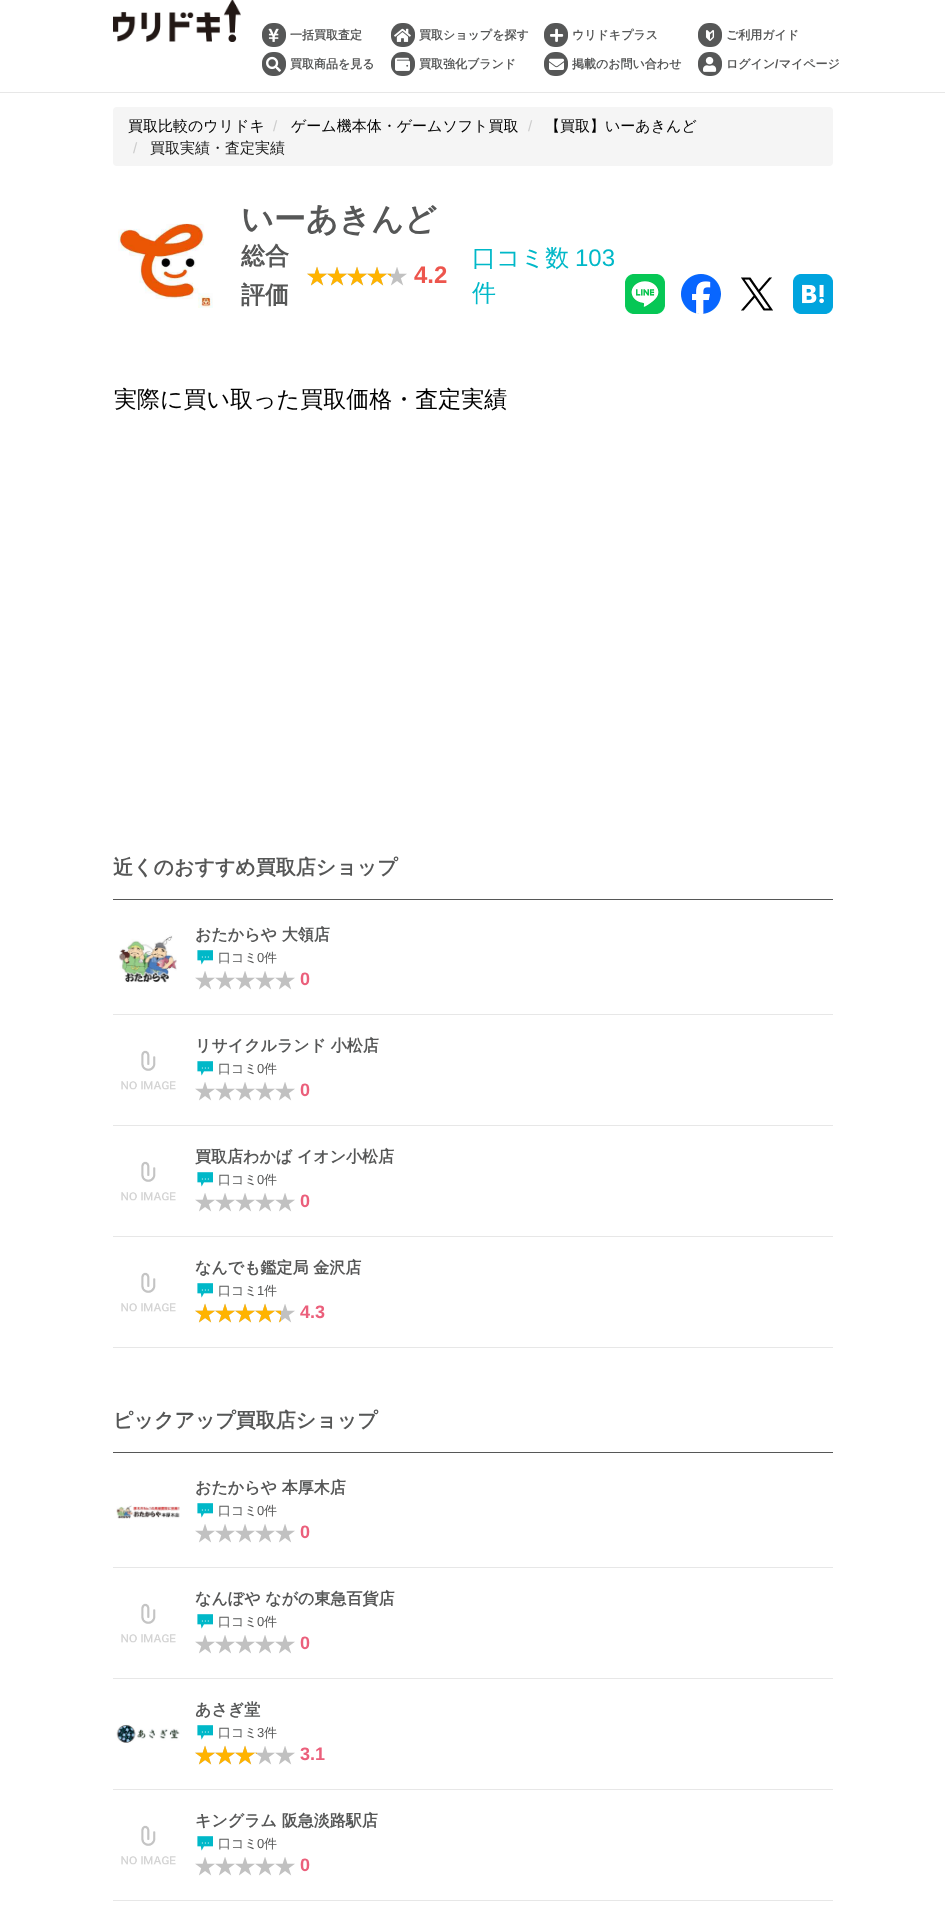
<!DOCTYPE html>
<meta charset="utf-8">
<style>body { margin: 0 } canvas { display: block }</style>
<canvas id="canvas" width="945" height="1910"></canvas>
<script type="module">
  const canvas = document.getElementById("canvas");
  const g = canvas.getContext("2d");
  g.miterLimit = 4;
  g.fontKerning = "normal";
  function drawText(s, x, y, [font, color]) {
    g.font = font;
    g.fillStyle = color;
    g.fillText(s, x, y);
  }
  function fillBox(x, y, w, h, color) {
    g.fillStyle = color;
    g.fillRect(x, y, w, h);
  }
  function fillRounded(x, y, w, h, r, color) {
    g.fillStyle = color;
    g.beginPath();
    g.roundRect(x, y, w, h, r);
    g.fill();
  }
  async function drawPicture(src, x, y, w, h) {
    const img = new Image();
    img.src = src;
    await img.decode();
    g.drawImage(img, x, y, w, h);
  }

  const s1 = ["bold 12px WenQuanYi Zen Hei", "#565757"];
  const s2 = ["bold 12px Liberation Sans", "#565757"];
  const s3 = ["500 15px WenQuanYi Zen Hei", "#000000"];
  const s4 = ["15px Liberation Sans", "#CCCCCC"];
  const s5 = ["500 15px WenQuanYi Zen Hei", "#191919"];
  const s6 = ["bold 32px WenQuanYi Zen Hei", "#565757"];
  const s7 = ["bold 24px WenQuanYi Zen Hei", "#565757"];
  const s8 = ["bold 24px Liberation Sans", "#ED554D"];
  const s9 = ["500 24px WenQuanYi Zen Hei", "#00B8C8"];
  const s10 = ["24px Liberation Sans", "#00B8C8"];
  const s11 = ["500 23px WenQuanYi Zen Hei", "#000000"];
  const s12 = ["bold 20px WenQuanYi Zen Hei", "#565757"];
  const s13 = ["bold 16px WenQuanYi Zen Hei", "#565757"];
  const s14 = ["500 13px WenQuanYi Zen Hei", "#565757"];
  const s15 = ["13px Liberation Sans", "#565757"];
  const s16 = ["bold 18px Liberation Sans", "#EB5F7B"];

  fillBox(0, 0, 945, 1910, "#FFFFFF");
  await drawPicture("pic1.png", 113, 0, 128, 42);
  fillRounded(262, 23, 24, 24, 11, "#565757");
  await drawPicture("pic2.png", 268, 28, 11, 14);
  drawText("一括買取査定", 290, 39, s1);
  fillRounded(391, 23, 24, 24, 11, "#565757");
  await drawPicture("pic3.png", 394, 28, 17, 14);
  drawText("買取ショップを探す", 419, 39, s1);
  fillRounded(544, 23, 24, 24, 11, "#565757");
  await drawPicture("pic4.png", 550, 28, 14, 14);
  drawText("ウリドキプラス", 572, 39, s1);
  fillRounded(698, 23, 24, 24, 11, "#565757");
  await drawPicture("pic5.png", 705, 30, 10, 11);
  drawText("ご利用ガイド", 726, 39, s1);
  fillRounded(262, 52, 24, 24, 11, "#565757");
  await drawPicture("pic6.png", 266, 56, 15, 16);
  drawText("買取商品を見る", 290, 68, s1);
  fillRounded(391, 52, 24, 24, 11, "#565757");
  await drawPicture("pic7.png", 395, 57, 15, 14);
  drawText("買取強化ブランド", 419, 68, s1);
  fillRounded(544, 52, 24, 24, 11, "#565757");
  await drawPicture("pic8.png", 549, 58, 15, 12);
  drawText("掲載のお問い合わせ", 572, 68, s1);
  fillRounded(698, 52, 24, 24, 11, "#565757");
  await drawPicture("pic9.png", 703, 56, 14, 16);
  drawText("ログイン マイページ", 726, 68, s1);
  drawText("/", 775, 68, s2);
  fillBox(0, 92, 945, 1, "#E7E7E7");
  fillRounded(113, 107, 720, 59, 4, "#F5F5F5");
  drawText("買取比較のウリドキ", 128, 131, s3);
  drawText("/", 273, 131, s4);
  drawText("ゲーム機本体・ゲームソフト買取", 291, 131, s3);
  drawText("/", 528, 131, s4);
  drawText("【買取】いーあきんど", 545, 131, s3);
  drawText("/", 133, 153, s4);
  drawText("買取実績・査定実績", 150, 153, s5);
  await drawPicture("pic10.png", 118, 223, 95, 85);
  drawText("いーあきんど", 241, 230, s6);
  drawText("総合", 241, 264, s7);
  drawText("評価", 241, 303, s7);
  await drawPicture("pic13.png", 307, 267, 20, 19);
  await drawPicture("pic11.png", 307, 266, 20, 20);
  await drawPicture("pic13.png", 327, 267, 20, 19);
  await drawPicture("pic11.png", 327, 266, 20, 20);
  await drawPicture("pic13.png", 347, 267, 20, 19);
  await drawPicture("pic11.png", 347, 266, 20, 20);
  await drawPicture("pic13.png", 367, 267, 20, 19);
  await drawPicture("pic11.png", 367, 266, 20, 20);
  await drawPicture("pic13.png", 387, 267, 20, 19);
  await drawPicture("pic12.png", 387, 273, 4, 13);
  drawText("4.2", 414, 283, s8);
  drawText("口コミ数", 472, 266, s9);
  drawText("103", 575, 266, s10);
  drawText("件", 472, 301, s9);
  await drawPicture("pic14.png", 625, 274, 40, 40);
  await drawPicture("pic15.png", 681, 274, 40, 40);
  await drawPicture("pic16.png", 741, 277, 32, 34);
  await drawPicture("pic17.png", 793, 274, 40, 40);
  drawText("実際に買い取った買取価格・査定実績", 114, 407, s11);
  fillBox(113, 899, 720, 1, "#565757");
  drawText("近くのおすすめ買取店ショップ", 113, 874, s12);
  fillBox(113, 1014, 720, 1, "#E7E7E7");
  await drawPicture("pic18.png", 119, 935, 58, 48);
  drawText("おたからや 大領店", 195, 940, s13);
  await drawPicture("pic19.png", 197, 950, 16, 15);
  drawText("口コミ", 218, 962, s14);
  drawText("0", 257, 962, s15);
  drawText("件", 264, 962, s14);
  await drawPicture("pic13.png", 195, 971, 20, 19);
  await drawPicture("pic13.png", 215, 971, 20, 19);
  await drawPicture("pic13.png", 235, 971, 20, 19);
  await drawPicture("pic13.png", 255, 971, 20, 19);
  await drawPicture("pic13.png", 275, 971, 20, 19);
  drawText("0", 300, 985, s16);
  fillBox(113, 1125, 720, 1, "#E7E7E7");
  await drawPicture("pic20.png", 121, 1050, 55, 40);
  drawText("リサイクルランド 小松店", 195, 1051, s13);
  await drawPicture("pic19.png", 197, 1061, 16, 15);
  drawText("口コミ", 218, 1073, s14);
  drawText("0", 257, 1073, s15);
  drawText("件", 264, 1073, s14);
  await drawPicture("pic13.png", 195, 1082, 20, 19);
  await drawPicture("pic13.png", 215, 1082, 20, 19);
  await drawPicture("pic13.png", 235, 1082, 20, 19);
  await drawPicture("pic13.png", 255, 1082, 20, 19);
  await drawPicture("pic13.png", 275, 1082, 20, 19);
  drawText("0", 300, 1096, s16);
  fillBox(113, 1236, 720, 1, "#E7E7E7");
  await drawPicture("pic20.png", 121, 1161, 55, 40);
  drawText("買取店わかば イオン小松店", 195, 1162, s13);
  await drawPicture("pic19.png", 197, 1172, 16, 15);
  drawText("口コミ", 218, 1184, s14);
  drawText("0", 257, 1184, s15);
  drawText("件", 264, 1184, s14);
  await drawPicture("pic13.png", 195, 1193, 20, 19);
  await drawPicture("pic13.png", 215, 1193, 20, 19);
  await drawPicture("pic13.png", 235, 1193, 20, 19);
  await drawPicture("pic13.png", 255, 1193, 20, 19);
  await drawPicture("pic13.png", 275, 1193, 20, 19);
  drawText("0", 300, 1207, s16);
  fillBox(113, 1347, 720, 1, "#E7E7E7");
  await drawPicture("pic20.png", 121, 1272, 55, 40);
  drawText("なんでも鑑定局 金沢店", 195, 1273, s13);
  await drawPicture("pic19.png", 197, 1283, 16, 15);
  drawText("口コミ", 218, 1295, s14);
  drawText("1", 257, 1295, s15);
  drawText("件", 264, 1295, s14);
  await drawPicture("pic13.png", 195, 1304, 20, 19);
  await drawPicture("pic11.png", 195, 1303, 20, 20);
  await drawPicture("pic13.png", 215, 1304, 20, 19);
  await drawPicture("pic11.png", 215, 1303, 20, 20);
  await drawPicture("pic13.png", 235, 1304, 20, 19);
  await drawPicture("pic11.png", 235, 1303, 20, 20);
  await drawPicture("pic13.png", 255, 1304, 20, 19);
  await drawPicture("pic11.png", 255, 1303, 20, 20);
  await drawPicture("pic13.png", 275, 1304, 20, 19);
  await drawPicture("pic21.png", 275, 1310, 6, 13);
  drawText("4.3", 300, 1318, s16);
  fillBox(113, 1452, 720, 1, "#565757");
  drawText("ピックアップ買取店ショップ", 113, 1427, s12);
  fillBox(113, 1567, 720, 1, "#E7E7E7");
  await drawPicture("pic22.png", 116, 1505, 64, 14);
  drawText("おたからや 本厚木店", 195, 1493, s13);
  await drawPicture("pic19.png", 197, 1503, 16, 15);
  drawText("口コミ", 218, 1515, s14);
  drawText("0", 257, 1515, s15);
  drawText("件", 264, 1515, s14);
  await drawPicture("pic13.png", 195, 1524, 20, 19);
  await drawPicture("pic13.png", 215, 1524, 20, 19);
  await drawPicture("pic13.png", 235, 1524, 20, 19);
  await drawPicture("pic13.png", 255, 1524, 20, 19);
  await drawPicture("pic13.png", 275, 1524, 20, 19);
  drawText("0", 300, 1538, s16);
  fillBox(113, 1678, 720, 1, "#E7E7E7");
  await drawPicture("pic20.png", 121, 1603, 55, 40);
  drawText("なんぼや ながの東急百貨店", 195, 1604, s13);
  await drawPicture("pic19.png", 197, 1614, 16, 15);
  drawText("口コミ", 218, 1626, s14);
  drawText("0", 257, 1626, s15);
  drawText("件", 264, 1626, s14);
  await drawPicture("pic13.png", 195, 1635, 20, 19);
  await drawPicture("pic13.png", 215, 1635, 20, 19);
  await drawPicture("pic13.png", 235, 1635, 20, 19);
  await drawPicture("pic13.png", 255, 1635, 20, 19);
  await drawPicture("pic13.png", 275, 1635, 20, 19);
  drawText("0", 300, 1649, s16);
  fillBox(113, 1789, 720, 1, "#E7E7E7");
  await drawPicture("pic23.png", 116, 1724, 64, 19);
  drawText("あさぎ堂", 195, 1715, s13);
  await drawPicture("pic19.png", 197, 1725, 16, 15);
  drawText("口コミ", 218, 1737, s14);
  drawText("3", 257, 1737, s15);
  drawText("件", 264, 1737, s14);
  await drawPicture("pic13.png", 195, 1746, 20, 19);
  await drawPicture("pic11.png", 195, 1745, 20, 20);
  await drawPicture("pic13.png", 215, 1746, 20, 19);
  await drawPicture("pic11.png", 215, 1745, 20, 20);
  await drawPicture("pic13.png", 235, 1746, 20, 19);
  await drawPicture("pic11.png", 235, 1745, 20, 20);
  await drawPicture("pic13.png", 255, 1746, 20, 19);
  await drawPicture("pic24.png", 255, 1752, 2, 2);
  await drawPicture("pic13.png", 275, 1746, 20, 19);
  drawText("3.1", 300, 1760, s16);
  fillBox(113, 1900, 720, 1, "#E7E7E7");
  await drawPicture("pic20.png", 121, 1825, 55, 40);
  drawText("キングラム 阪急淡路駅店", 195, 1826, s13);
  await drawPicture("pic19.png", 197, 1836, 16, 15);
  drawText("口コミ", 218, 1848, s14);
  drawText("0", 257, 1848, s15);
  drawText("件", 264, 1848, s14);
  await drawPicture("pic13.png", 195, 1857, 20, 19);
  await drawPicture("pic13.png", 215, 1857, 20, 19);
  await drawPicture("pic13.png", 235, 1857, 20, 19);
  await drawPicture("pic13.png", 255, 1857, 20, 19);
  await drawPicture("pic13.png", 275, 1857, 20, 19);
  drawText("0", 300, 1871, s16);
</script>
